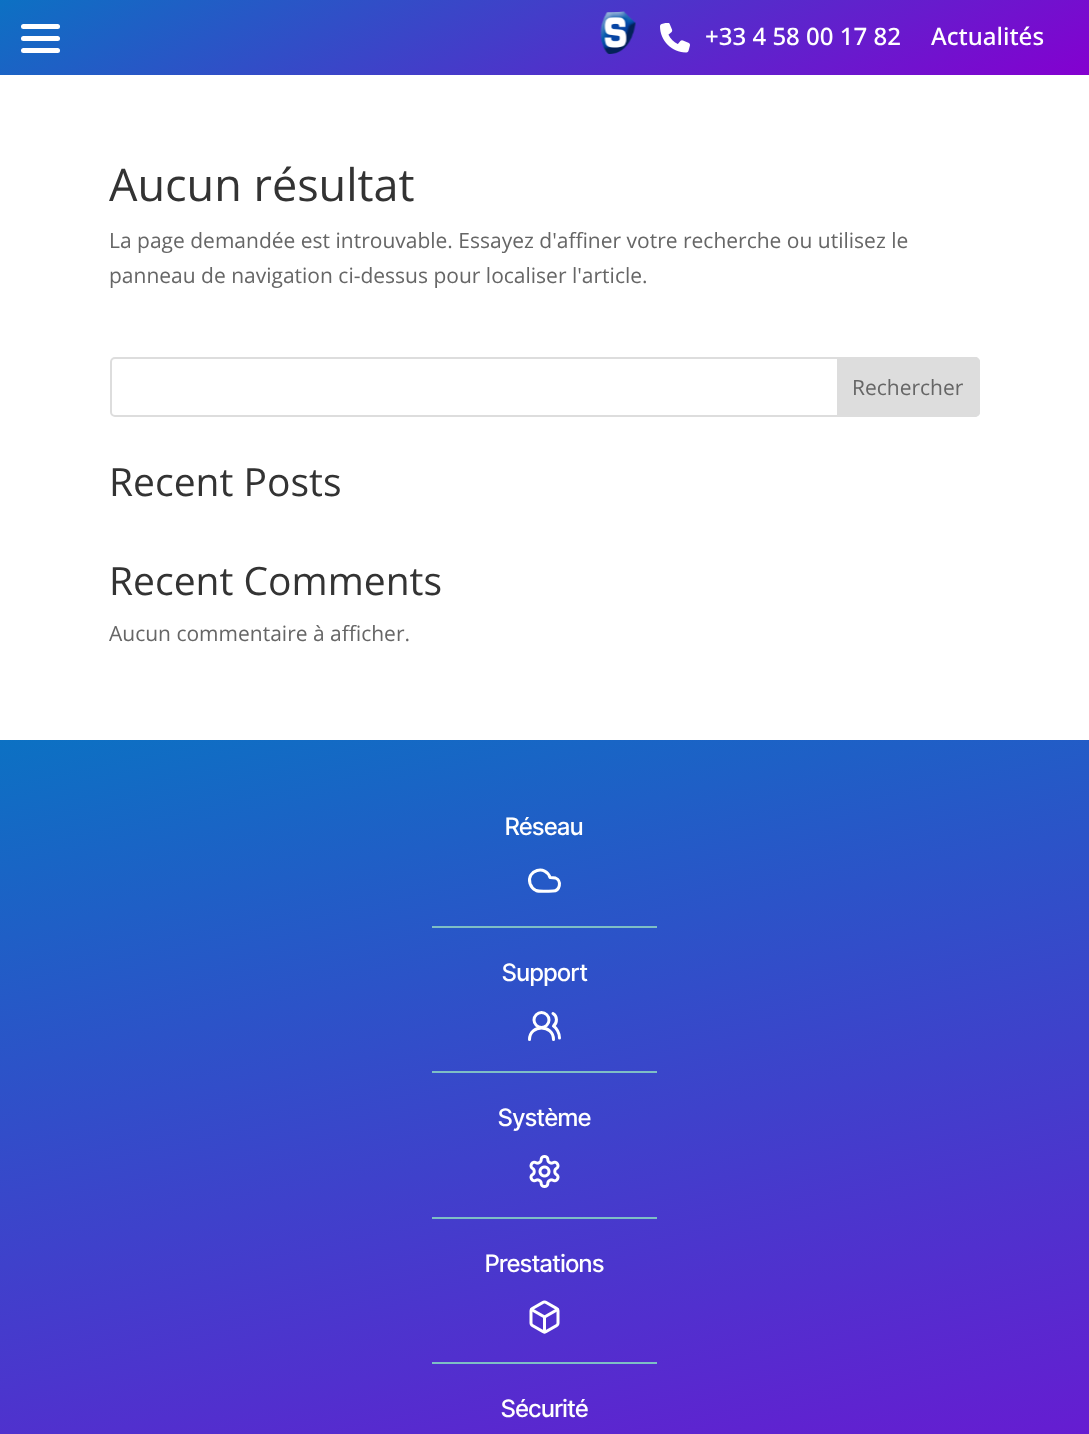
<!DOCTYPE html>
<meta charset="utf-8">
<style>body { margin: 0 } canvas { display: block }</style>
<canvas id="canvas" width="1089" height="1434"></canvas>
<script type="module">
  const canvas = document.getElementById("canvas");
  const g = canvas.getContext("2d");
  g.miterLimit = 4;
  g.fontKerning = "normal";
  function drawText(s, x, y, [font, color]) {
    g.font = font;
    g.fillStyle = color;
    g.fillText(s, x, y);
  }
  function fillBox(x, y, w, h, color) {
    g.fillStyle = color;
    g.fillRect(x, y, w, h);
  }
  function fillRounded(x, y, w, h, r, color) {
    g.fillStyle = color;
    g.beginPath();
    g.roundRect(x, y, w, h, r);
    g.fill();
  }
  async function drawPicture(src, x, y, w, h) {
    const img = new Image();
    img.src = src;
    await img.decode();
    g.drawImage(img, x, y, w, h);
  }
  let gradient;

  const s1 = ["500 24px Noto Sans", "#FFFFFF"];
  const s2 = ["45px Open Sans", "#333333"];
  const s3 = ["21px Open Sans", "#666666"];
  const s4 = ["39px Open Sans", "#333333"];
  const s5 = ["500 24px Inter Tight", "#FFFFFF"];

  fillBox(0, 0, 1089, 1434, "#FFFFFF");
  gradient = g.createLinearGradient(672, 288, 417, -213);
  gradient.addColorStop(0, "#8400D0");
  gradient.addColorStop(1, "#0C71C3");
  g.fillStyle = gradient;
  g.fillRect(0, 0, 1089, 75);
  fillRounded(21, 24, 39, 5, 2.5, "#FFFFFF");
  fillRounded(21, 36, 39, 5, 2.5, "#FFFFFF");
  fillRounded(21, 48, 39, 5, 2.5, "#FFFFFF");
  await drawPicture("pic1.png", 600, 11, 36, 43);
  await drawPicture("pic2.png", 660, 23, 30, 30);
  drawText("+33 4 58 00 17 82", 705, 45, s1);
  drawText("Actualités", 931, 45, s1);
  drawText("Aucun résultat", 109, 201, s2);
  drawText("La page demandée est introuvable. Essayez d'affiner votre recherche ou utilisez le", 109, 248, s3);
  drawText("panneau de navigation ci-dessus pour localiser l'article.", 109, 283, s3);
  g.beginPath();
  g.roundRect(111, 358, 868, 58, 4);
  g.strokeStyle = "#DDDDDD";
  g.lineWidth = 2;
  g.stroke();
  g.fillStyle = "#DDDDDD";
  g.beginPath();
  g.roundRect(838, 358, 141, 58, [0, 4, 4, 0]);
  g.fill();
  g.stroke();
  drawText("Rechercher", 852, 395, s3);
  drawText("Recent Posts", 109, 496, s4);
  drawText("Recent Comments", 109, 595, s4);
  drawText("Aucun commentaire à afficher.", 109, 641, s3);
  gradient = g.createLinearGradient(671, 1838, 418, 651);
  gradient.addColorStop(0, "#8400D6");
  gradient.addColorStop(1, "#0C71C3");
  g.fillStyle = gradient;
  g.fillRect(0, 740, 1089, 694);
  drawText("Réseau", 505, 835, s5);
  g.beginPath();
  g.moveTo(553, 891);
  g.bezierCurveTo(548.5, 891, 540, 892, 536, 890.5);
  g.bezierCurveTo(533, 889, 531, 886.5, 530, 883.5);
  g.bezierCurveTo(526, 870, 546, 864.5, 550, 877.5);
  g.bezierCurveTo(552, 877.5, 553.5, 877.5, 555.5, 878);
  g.bezierCurveTo(562, 881, 560, 891, 553, 891);
  g.closePath();
  g.strokeStyle = "#FFFFFF";
  g.lineWidth = 3;
  g.lineCap = "round";
  g.lineJoin = "round";
  g.stroke();
  fillBox(432, 926, 225, 2, "#7EBEC5");
  drawText("Support", 502, 981, s5);
  g.beginPath();
  g.moveTo(553.5, 1039.5);
  g.bezierCurveTo(553.5, 1024, 529.5, 1024, 529.5, 1039.5);
  g.stroke();
  g.beginPath();
  g.arc(541.5, 1020, 7.5, 0, Math.PI * 2);
  g.stroke();
  g.beginPath();
  g.moveTo(559.5, 1038);
  g.bezierCurveTo(559.5, 1033, 556.5, 1028, 553.5, 1026);
  g.bezierCurveTo(557.5, 1023, 557.5, 1016, 553, 1013.5);
  g.stroke();
  fillBox(432, 1071, 225, 2, "#7EBEC5");
  drawText("Système", 498, 1126, s5);
  await drawPicture("pic3.png", 529, 1155, 31, 33);
  fillBox(432, 1217, 225, 2, "#7EBEC5");
  drawText("Prestations", 485, 1272, s5);
  await drawPicture("pic4.png", 529, 1300, 31, 34);
  fillBox(432, 1362, 225, 2, "#7EBEC5");
  drawText("Sécurité", 501, 1417, s5);
</script>
